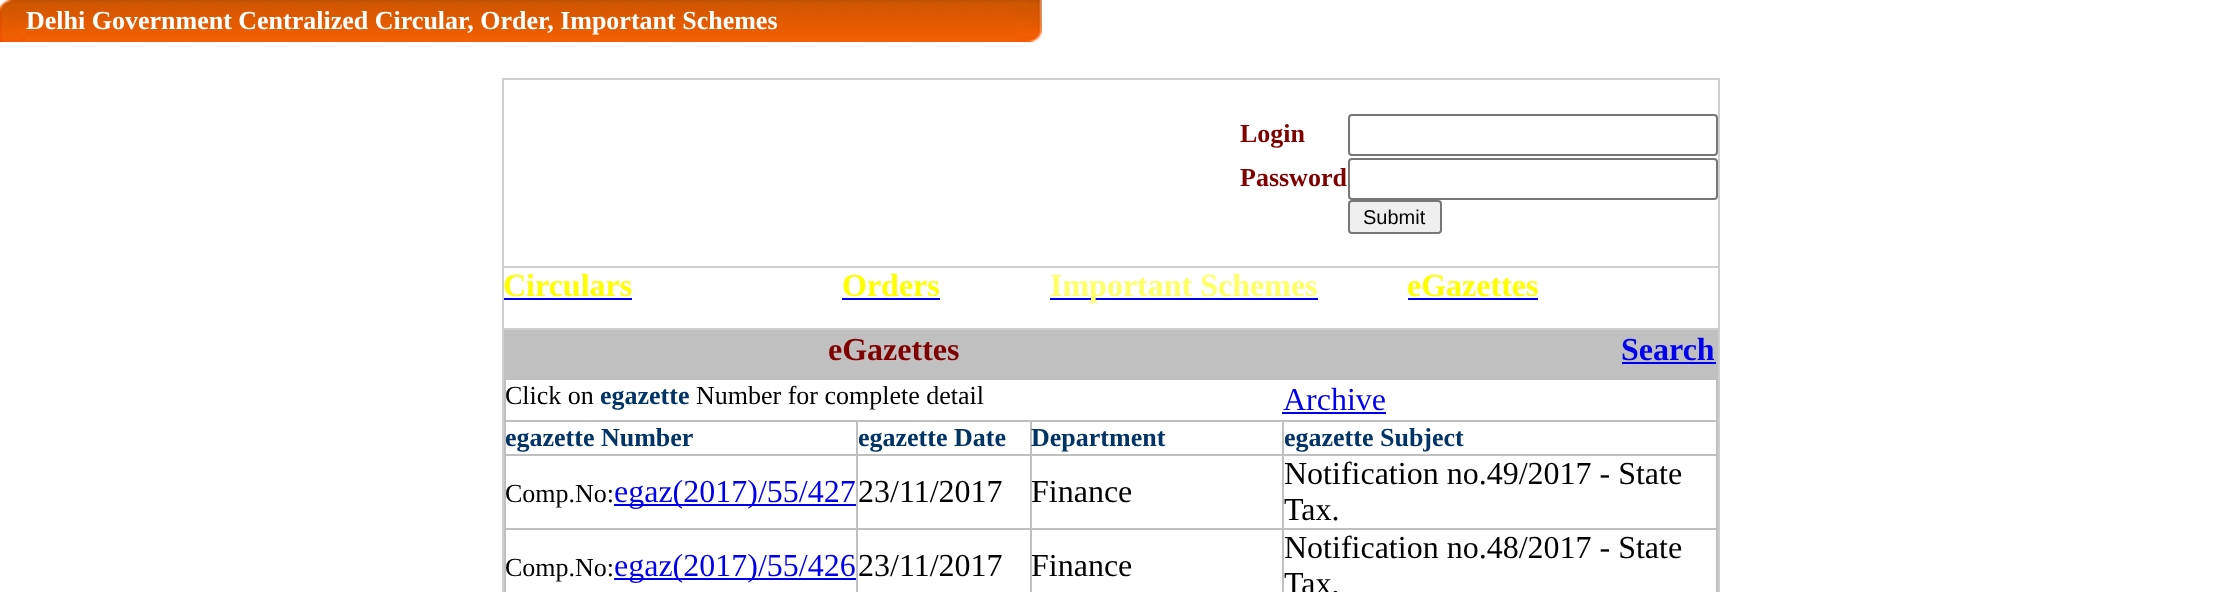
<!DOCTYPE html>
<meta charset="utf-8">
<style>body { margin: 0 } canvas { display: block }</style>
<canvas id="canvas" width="2219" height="592"></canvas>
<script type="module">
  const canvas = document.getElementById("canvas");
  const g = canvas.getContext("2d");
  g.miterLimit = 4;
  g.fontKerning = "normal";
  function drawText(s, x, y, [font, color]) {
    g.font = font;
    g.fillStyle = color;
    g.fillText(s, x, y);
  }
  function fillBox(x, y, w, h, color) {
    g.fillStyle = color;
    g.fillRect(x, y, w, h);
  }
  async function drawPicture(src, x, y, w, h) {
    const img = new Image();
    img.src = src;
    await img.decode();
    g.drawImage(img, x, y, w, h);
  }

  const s1 = ["bold 26px Liberation Serif", "#FFFFFF"];
  const s2 = ["bold 26px Liberation Serif", "#800000"];
  const s3 = ["20px Liberation Sans", "#000000"];
  const s4 = ["bold 32px Liberation Serif", "#FFFF00"];
  const s5 = ["bold 32px Liberation Serif", "#FFFF66"];
  const s6 = ["bold 32px Liberation Serif", "#800000"];
  const s7 = ["bold 32px Liberation Serif", "#0000EE"];
  const s8 = ["26px Liberation Serif", "#000000"];
  const s9 = ["bold 26px Liberation Serif", "#003366"];
  const s10 = ["32px Liberation Serif", "#0000EE"];
  const s11 = ["32px Liberation Serif", "#000000"];

  fillBox(0, 0, 2219, 592, "#FFFFFF");
  await drawPicture("pic1.png", 0, 0, 26, 42);
  await drawPicture("pic2.png", 26, 0, 990, 42);
  drawText("Delhi Government Centralized Circular, Order, Important Schemes", 26, 29, s1);
  await drawPicture("pic3.png", 1016, 0, 26, 42);
  fillBox(502, 78, 1218, 2, "#CFCFCF");
  fillBox(1718, 78, 2, 514, "#CFCFCF");
  fillBox(502, 78, 2, 514, "#CFCFCF");
  drawText("Login", 1240, 142, s2);
  g.beginPath();
  g.roundRect(1349, 115, 368, 40, 3);
  g.strokeStyle = "#767676";
  g.lineWidth = 2;
  g.stroke();
  drawText("Password", 1240, 186, s2);
  g.beginPath();
  g.roundRect(1349, 159, 368, 40, 3);
  g.stroke();
  g.fillStyle = "#EFEFEF";
  g.beginPath();
  g.roundRect(1349, 201, 92, 32, 3);
  g.fill();
  g.stroke();
  drawText("Submit", 1363, 224, s3);
  drawText("Circulars", 503, 296, s4);
  fillBox(504, 298, 128, 2, "#0000EE");
  drawText("Orders", 842, 296, s4);
  fillBox(842, 298, 98, 2, "#0000EE");
  fillBox(1050, 298, 268, 2, "#0000EE");
  drawText("Important Schemes", 1050, 296, s5);
  fillBox(502, 266, 1218, 2, "#CFCFCF");
  drawText("eGazettes", 1407, 296, s4);
  fillBox(1408, 298, 130, 2, "#0000EE");
  fillBox(502, 328, 1218, 2, "#CFCFCF");
  fillBox(504, 330, 1214, 2, "#C0C0C0");
  fillBox(504, 330, 2, 262, "#C0C0C0");
  fillBox(506, 332, 776, 48, "#C0C0C0");
  drawText("eGazettes", 828, 360, s6);
  fillBox(1282, 332, 434, 46, "#C0C0C0");
  drawText("Search", 1621, 360, s7);
  fillBox(1622, 362, 94, 2, "#0000EE");
  drawText("Click on", 505, 404, s8);
  drawText("egazette", 600, 404, s9);
  drawText("Number for complete detail", 696, 404, s8);
  fillBox(1282, 378, 436, 2, "#C0C0C0");
  fillBox(1282, 420, 436, 2, "#C0C0C0");
  fillBox(1282, 454, 436, 2, "#C0C0C0");
  fillBox(1282, 528, 436, 2, "#C0C0C0");
  fillBox(1716, 528, 2, 64, "#C0C0C0");
  fillBox(1716, 454, 2, 76, "#C0C0C0");
  fillBox(1716, 420, 2, 36, "#C0C0C0");
  fillBox(1716, 330, 2, 92, "#C0C0C0");
  drawText("Archive", 1283, 410, s10);
  fillBox(1282, 412, 104, 2, "#0000EE");
  fillBox(1282, 528, 2, 64, "#C0C0C0");
  fillBox(1030, 528, 254, 2, "#C0C0C0");
  fillBox(1282, 454, 2, 76, "#C0C0C0");
  fillBox(1030, 454, 254, 2, "#C0C0C0");
  fillBox(1282, 420, 2, 36, "#C0C0C0");
  fillBox(1030, 420, 254, 2, "#C0C0C0");
  fillBox(1030, 528, 2, 64, "#C0C0C0");
  fillBox(856, 528, 176, 2, "#C0C0C0");
  fillBox(1030, 454, 2, 76, "#C0C0C0");
  fillBox(856, 454, 176, 2, "#C0C0C0");
  fillBox(1030, 420, 2, 36, "#C0C0C0");
  fillBox(856, 420, 176, 2, "#C0C0C0");
  fillBox(856, 528, 2, 64, "#C0C0C0");
  fillBox(504, 528, 354, 2, "#C0C0C0");
  fillBox(856, 454, 2, 76, "#C0C0C0");
  fillBox(504, 454, 354, 2, "#C0C0C0");
  fillBox(856, 420, 2, 36, "#C0C0C0");
  fillBox(504, 420, 354, 2, "#C0C0C0");
  drawText("egazette Number", 505, 446, s9);
  drawText("egazette Date", 858, 446, s9);
  drawText("Department", 1031, 446, s9);
  drawText("egazette Subject", 1284, 446, s9);
  drawText("Comp.No:", 505, 502, s8);
  fillBox(614, 504, 242, 2, "#0000EE");
  drawText("egaz(2017)/55/427", 614, 502, s10);
  drawText("23/11/2017", 858, 502, s11);
  drawText("Finance", 1031, 502, s11);
  drawText("Notification no.49/2017 - State", 1284, 484, s11);
  drawText("Tax.", 1284, 520, s11);
  drawText("Comp.No:", 505, 576, s8);
  fillBox(614, 578, 242, 2, "#0000EE");
  drawText("egaz(2017)/55/426", 614, 576, s10);
  drawText("23/11/2017", 858, 576, s11);
  drawText("Finance", 1031, 576, s11);
  drawText("Notification no.48/2017 - State", 1284, 558, s11);
  drawText("Tax.", 1284, 594, s11);
</script>
